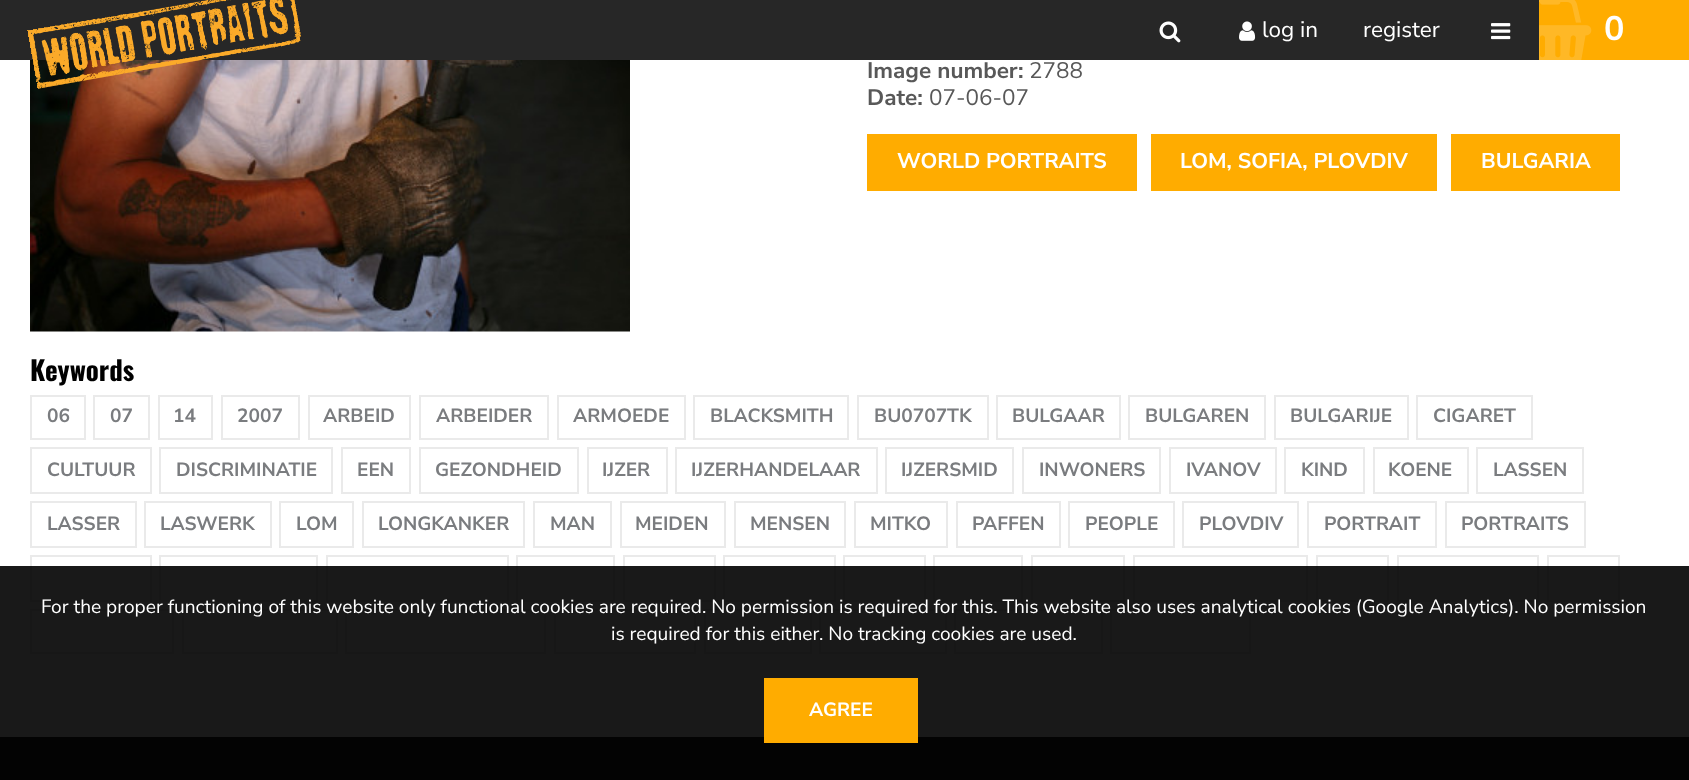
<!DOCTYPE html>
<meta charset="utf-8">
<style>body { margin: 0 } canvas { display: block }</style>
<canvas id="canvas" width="1689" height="780"></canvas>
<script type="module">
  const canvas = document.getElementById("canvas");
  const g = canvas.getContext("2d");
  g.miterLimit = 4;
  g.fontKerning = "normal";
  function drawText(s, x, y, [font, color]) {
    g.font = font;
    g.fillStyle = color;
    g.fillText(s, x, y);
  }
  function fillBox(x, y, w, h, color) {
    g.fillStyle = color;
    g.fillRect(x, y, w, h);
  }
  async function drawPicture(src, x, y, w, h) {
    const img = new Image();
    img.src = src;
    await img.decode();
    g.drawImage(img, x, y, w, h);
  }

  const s1 = ["22.5px Nunito Sans", "#FFFFFF"];
  const s2 = ["bold 34px Nunito Sans", "#FFFFFF"];
  const s3 = ["bold 22.5px Nunito Sans", "#585858"];
  const s4 = ["22.5px Nunito Sans", "#585858"];
  const s5 = ["bold 21.4px Nunito Sans", "#FFFFFF"];
  const s6 = ["bold 27px Oswald", "#000000"];
  const s7 = ["bold 19.12px Nunito Sans", "#7A7C7F"];
  const s8 = ["19.12px Nunito Sans", "#FFFFFF"];
  const s9 = ["bold 19.12px Nunito Sans", "#FFFFFF"];

  fillBox(0, 0, 1689, 780, "#FFFFFF");
  fillBox(0, 0, 1539, 60, "#272727");
  await drawPicture("pic6.png", 30, 60, 600, 272);
  await drawPicture("pic1.png", 27, 0, 274, 89);
  await drawPicture("pic2.png", 1159, 21, 22, 22);
  await drawPicture("pic3.png", 1239, 21, 17, 20);
  drawText("log in", 1262, 37, s1);
  drawText("register", 1363, 37, s1);
  await drawPicture("pic4.png", 1491, 23, 20, 17);
  fillBox(1539, 0, 150, 60, "#FFAC00");
  await drawPicture("pic5.png", 1539, 0, 53, 60);
  drawText("0", 1604, 40, s2);
  drawText("Image number:", 867, 78, s3);
  drawText("2788", 1029, 78, s4);
  drawText("Date:", 867, 105, s3);
  drawText("07-06-07", 929, 105, s4);
  fillBox(867, 134, 270, 57, "#FFAC00");
  drawText("WORLD PORTRAITS", 897, 168, s5);
  fillBox(1151, 134, 286, 57, "#FFAC00");
  drawText("LOM, SOFIA, PLOVDIV", 1180, 168, s5);
  fillBox(1451, 134, 169, 57, "#FFAC00");
  drawText("BULGARIA", 1481, 168, s5);
  drawText("Keywords", 30, 381, s6);
  g.strokeStyle = "#EAEAEA";
  g.lineWidth = 2;
  g.strokeRect(31, 396, 54, 43);
  drawText("06", 47, 422, s7);
  g.strokeRect(94, 396, 55, 43);
  drawText("07", 110, 422, s7);
  g.strokeRect(159, 396, 53, 43);
  drawText("14", 173, 422, s7);
  g.strokeRect(222, 396, 77, 43);
  drawText("2007", 237, 422, s7);
  g.strokeRect(309, 396, 101, 43);
  drawText("ARBEID", 323, 422, s7);
  g.strokeRect(420, 396, 128, 43);
  drawText("ARBEIDER", 436, 422, s7);
  g.strokeRect(558, 396, 127, 43);
  drawText("ARMOEDE", 573, 422, s7);
  g.strokeRect(694, 396, 154, 43);
  drawText("BLACKSMITH", 710, 422, s7);
  g.strokeRect(858, 396, 130, 43);
  drawText("BU0707TK", 874, 422, s7);
  g.strokeRect(997, 396, 123, 43);
  drawText("BULGAAR", 1012, 422, s7);
  g.strokeRect(1129, 396, 136, 43);
  drawText("BULGAREN", 1145, 422, s7);
  g.strokeRect(1275, 396, 133, 43);
  drawText("BULGARIJE", 1290, 422, s7);
  g.strokeRect(1417, 396, 115, 43);
  drawText("CIGARET", 1433, 422, s7);
  g.strokeRect(31, 448, 120, 45);
  drawText("CULTUUR", 47, 476, s7);
  g.strokeRect(160, 448, 172, 45);
  drawText("DISCRIMINATIE", 176, 476, s7);
  g.strokeRect(342, 448, 68, 45);
  drawText("EEN", 357, 476, s7);
  g.strokeRect(420, 448, 158, 45);
  drawText("GEZONDHEID", 435, 476, s7);
  g.strokeRect(588, 448, 79, 45);
  drawText("IJZER", 602, 476, s7);
  g.strokeRect(676, 448, 201, 45);
  drawText("IJZERHANDELAAR", 691, 476, s7);
  g.strokeRect(886, 448, 127, 45);
  drawText("IJZERSMID", 901, 476, s7);
  g.strokeRect(1023, 448, 137, 45);
  drawText("INWONERS", 1039, 476, s7);
  g.strokeRect(1170, 448, 106, 45);
  drawText("IVANOV", 1186, 476, s7);
  g.strokeRect(1285, 448, 79, 45);
  drawText("KIND", 1301, 476, s7);
  g.strokeRect(1374, 448, 94, 45);
  drawText("KOENE", 1388, 476, s7);
  g.strokeRect(1477, 448, 106, 45);
  drawText("LASSEN", 1493, 476, s7);
  g.strokeRect(31, 502, 105, 45);
  drawText("LASSER", 47, 530, s7);
  g.strokeRect(145, 502, 126, 45);
  drawText("LASWERK", 160, 530, s7);
  g.strokeRect(280, 502, 73, 45);
  drawText("LOM", 296, 530, s7);
  g.strokeRect(363, 502, 161, 45);
  drawText("LONGKANKER", 378, 530, s7);
  g.strokeRect(534, 502, 77, 45);
  drawText("MAN", 550, 530, s7);
  g.strokeRect(621, 502, 104, 45);
  drawText("MEIDEN", 635, 530, s7);
  g.strokeRect(735, 502, 110, 45);
  drawText("MENSEN", 750, 530, s7);
  g.strokeRect(855, 502, 92, 45);
  drawText("MITKO", 870, 530, s7);
  g.strokeRect(957, 502, 103, 45);
  drawText("PAFFEN", 972, 530, s7);
  g.strokeRect(1069, 502, 105, 45);
  drawText("PEOPLE", 1085, 530, s7);
  g.strokeRect(1183, 502, 115, 45);
  drawText("PLOVDIV", 1199, 530, s7);
  g.strokeRect(1308, 502, 128, 45);
  drawText("PORTRAIT", 1324, 530, s7);
  g.strokeRect(1446, 502, 139, 45);
  drawText("PORTRAITS", 1461, 530, s7);
  g.strokeRect(31, 556, 120, 45);
  g.strokeRect(160, 556, 157, 45);
  g.strokeRect(327, 556, 181, 45);
  g.strokeRect(517, 556, 97, 45);
  g.strokeRect(624, 556, 91, 45);
  g.strokeRect(724, 556, 111, 45);
  g.strokeRect(844, 556, 81, 45);
  g.strokeRect(934, 556, 88, 45);
  g.strokeRect(1032, 556, 92, 45);
  g.strokeRect(1134, 556, 173, 45);
  g.strokeRect(1317, 556, 71, 45);
  g.strokeRect(1398, 556, 140, 45);
  g.strokeRect(1548, 556, 71, 45);
  g.strokeRect(31, 610, 142, 43);
  g.strokeRect(183, 610, 154, 43);
  g.strokeRect(346, 610, 199, 43);
  g.strokeRect(555, 610, 140, 43);
  g.strokeRect(705, 610, 106, 43);
  g.strokeRect(820, 610, 126, 43);
  g.strokeRect(955, 610, 147, 43);
  g.strokeRect(1111, 610, 139, 43);
  fillBox(0, 737, 1689, 43, "#272727");
  fillBox(0, 566, 1689, 214, "rgba(0, 0, 0, 0.9)");
  drawText("For the proper functioning of this website only functional cookies are required. No permission is required for this. This website also uses analytical cookies (Google Analytics). No permission", 41, 613, s8);
  drawText("is required for this either. No tracking cookies are used.", 611, 640, s8);
  fillBox(764, 678, 154, 65, "#FFAC00");
  drawText("AGREE", 809, 716, s9);
</script>
